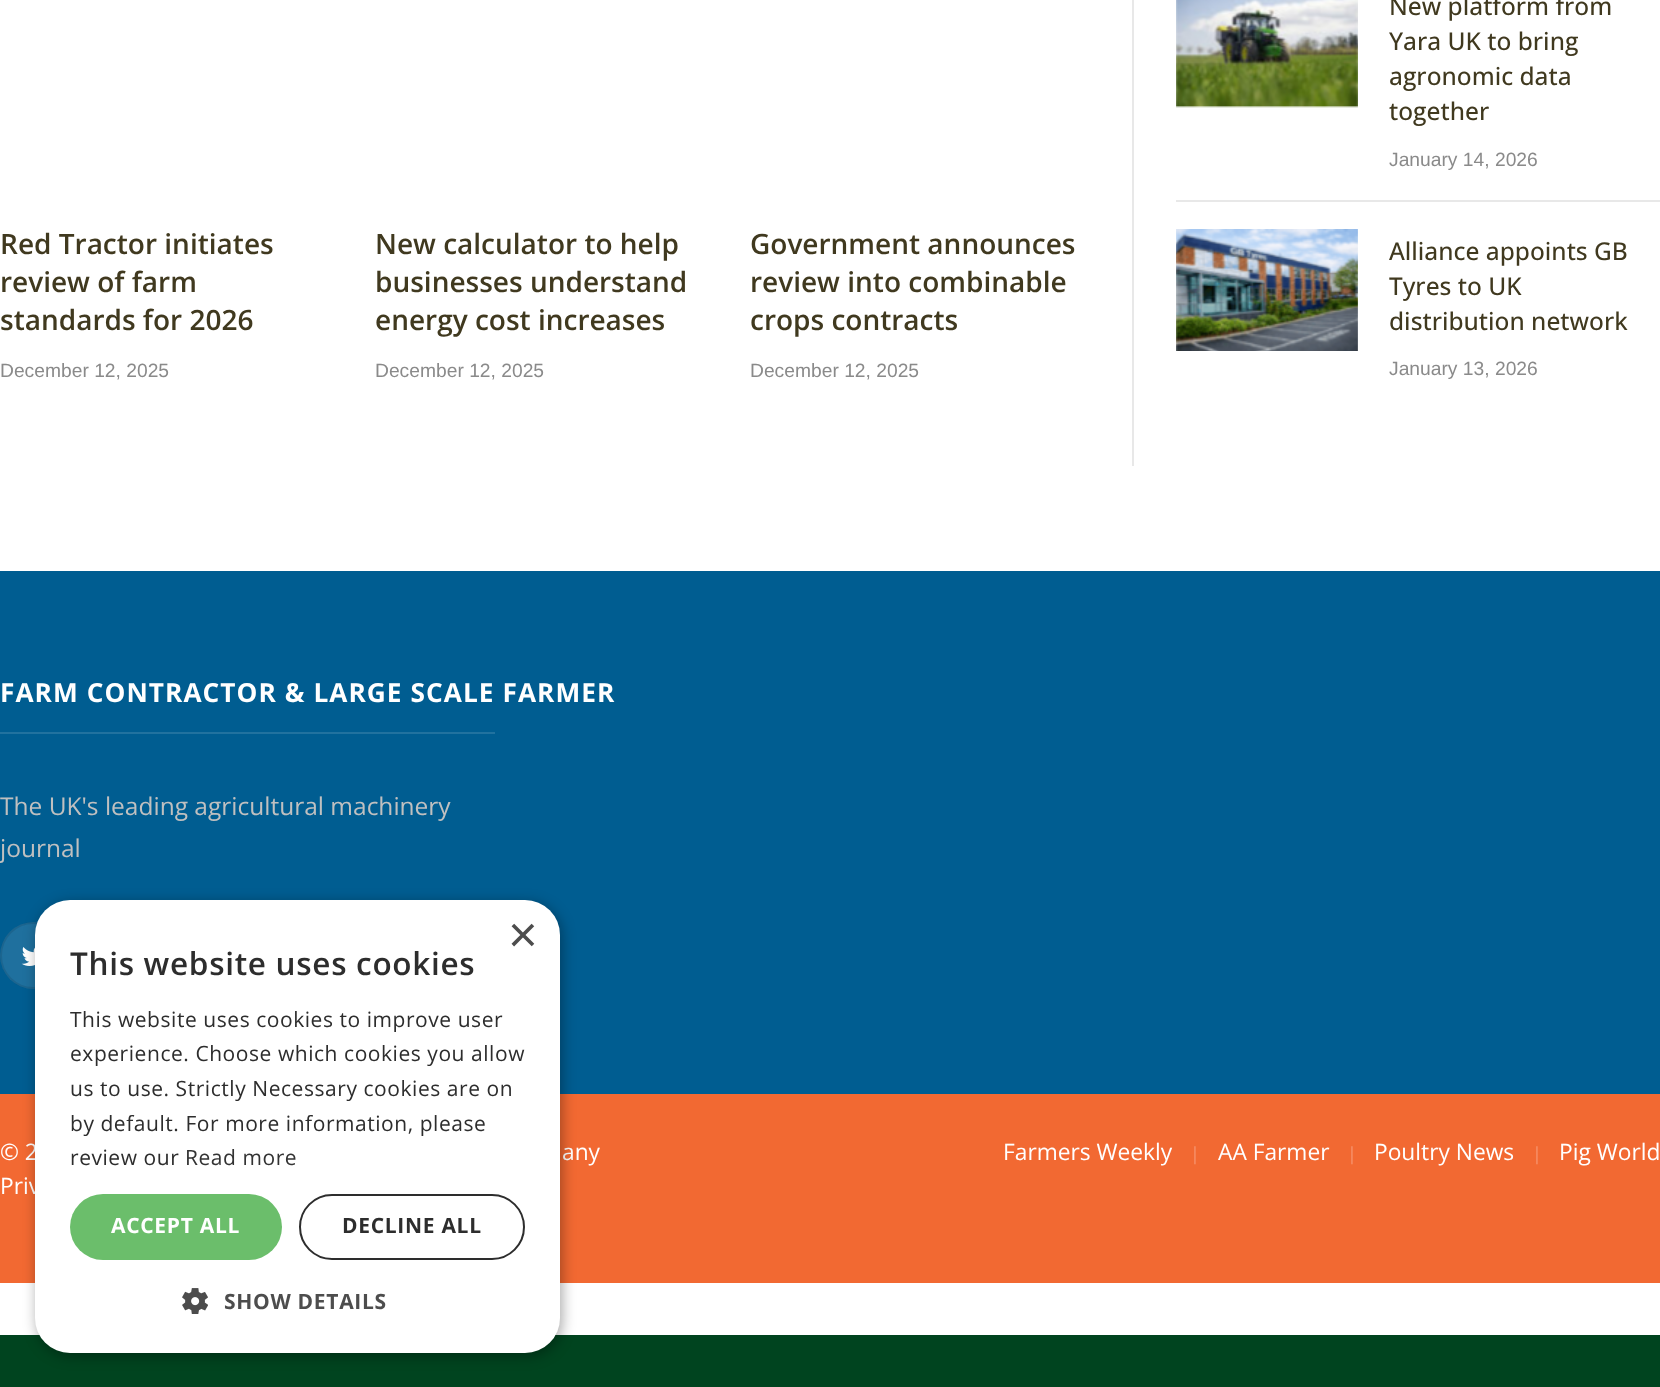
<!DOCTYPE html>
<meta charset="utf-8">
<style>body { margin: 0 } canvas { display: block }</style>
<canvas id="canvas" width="1660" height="1387"></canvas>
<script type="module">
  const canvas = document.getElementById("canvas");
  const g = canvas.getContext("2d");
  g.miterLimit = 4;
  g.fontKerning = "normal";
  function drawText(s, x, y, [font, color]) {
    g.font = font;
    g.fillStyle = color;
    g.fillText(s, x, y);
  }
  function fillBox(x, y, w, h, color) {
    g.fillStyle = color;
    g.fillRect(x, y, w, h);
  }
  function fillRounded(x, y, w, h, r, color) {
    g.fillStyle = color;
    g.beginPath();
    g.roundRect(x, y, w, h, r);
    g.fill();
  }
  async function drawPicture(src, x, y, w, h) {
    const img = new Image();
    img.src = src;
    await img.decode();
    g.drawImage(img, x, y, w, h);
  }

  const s1 = ["600 28px Open Sans", "#40391F"];
  const s2 = ["19.25px Arimo", "#8A8A8A"];
  const s3 = ["500 24.5px Open Sans", "#40391F"];
  const s4 = ["bold 26.25px Open Sans", "#FFFFFF"];
  const s5 = ["24.5px Open Sans", "#C0C0C0"];
  const s6 = ["22.75px Open Sans", "#FFFFFF"];
  const s7 = ["18px Open Sans", "#F69670"];
  const s8 = ["51px Liberation Sans", "#4D4D4D"];
  const s9 = ["600 31.5px Open Sans", "#2D2D2D"];
  const s10 = ["21px Open Sans", "#2D2D2D"];
  const s11 = ["21px Open Sans", "#333333"];
  const s12 = ["bold 21px Open Sans", "#FFFFFF"];
  const s13 = ["bold 21px Open Sans", "#2D2D2D"];
  const s14 = ["bold 21px Open Sans", "#4D4D4D"];

  fillBox(0, 0, 1660, 1387, "#00441F");
  fillBox(0, 0, 1660, 1335, "#FFFFFF");
  drawText("Red Tractor initiates", 0, 254, s1);
  drawText("review of farm", 0, 292, s1);
  drawText("standards for 2026", 0, 330, s1);
  drawText("December 12, 2025", 0, 377, s2);
  drawText("New calculator to help", 375, 254, s1);
  drawText("businesses understand", 375, 292, s1);
  drawText("energy cost increases", 375, 330, s1);
  drawText("December 12, 2025", 375, 377, s2);
  drawText("Government announces", 750, 254, s1);
  drawText("review into combinable", 750, 292, s1);
  drawText("crops contracts", 750, 330, s1);
  drawText("December 12, 2025", 750, 377, s2);
  fillBox(1132, 0, 2, 466, "#E8E8E8");
  await drawPicture("pic1.png", 1176, 0, 182, 108);
  drawText("New platform from", 1389, 15, s3);
  drawText("Yara UK to bring", 1389, 50, s3);
  drawText("agronomic data", 1389, 85, s3);
  drawText("together", 1389, 120, s3);
  drawText("January 14, 2026", 1389, 166, s2);
  fillBox(1176, 200, 484, 2, "#E8E8E8");
  await drawPicture("pic2.png", 1176, 229, 182, 122);
  drawText("Alliance appoints GB", 1389, 260, s3);
  drawText("Tyres to UK", 1389, 295, s3);
  drawText("distribution network", 1389, 330, s3);
  drawText("January 13, 2026", 1389, 375, s2);
  fillBox(0, 571, 1660, 523, "#005D91");
  fillBox(0, 732, 495, 2, "#21729F");
  g.letterSpacing = "1.05px";
  drawText("FARM CONTRACTOR & LARGE SCALE FARMER", 0, 702, s4);
  g.letterSpacing = "0px";
  drawText("The UK's leading agricultural machinery", 0, 815, s5);
  drawText("journal", 0, 857, s5);
  g.fillStyle = "#1F709E";
  g.beginPath();
  g.arc(33.5, 955.5, 33.5, 0, Math.PI * 2);
  g.fill();
  g.beginPath();
  g.arc(33.5, 955.5, 32.5, 0, Math.PI * 2);
  g.strokeStyle = "rgba(0, 0, 0, 0.09)";
  g.lineWidth = 2;
  g.stroke();
  await drawPicture("pic3.png", 21, 947, 14, 19);
  fillBox(0, 1094, 1660, 189, "#F26932");
  drawText("© 2", 0, 1160, s6);
  drawText("any", 562, 1160, s6);
  drawText("Priv", 0, 1194, s6);
  drawText("Farmers Weekly", 1003, 1160, s6);
  drawText("|", 1190, 1160, s7);
  drawText("AA Farmer", 1218, 1160, s6);
  drawText("|", 1347, 1160, s7);
  drawText("Poultry News", 1374, 1160, s6);
  drawText("|", 1532, 1160, s7);
  drawText("Pig World", 1559, 1160, s6);
  g.fillStyle = "rgba(0, 0, 0, 0.35)";
  g.filter = "blur(7px)";
  g.beginPath();
  g.roundRect(37, 903, 525, 453, 35);
  g.fill();
  g.filter = "none";
  fillRounded(35, 900, 525, 453, 35, "#FFFFFF");
  drawText("×", 508, 952, s8);
  g.letterSpacing = "0.7px";
  drawText("This website uses cookies", 70, 975, s9);
  g.letterSpacing = "0.55px";
  drawText("This website uses cookies to improve user", 70, 1027, s10);
  drawText("experience. Choose which cookies you allow", 70, 1061, s10);
  drawText("us to use. Strictly Necessary cookies are on", 70, 1096, s10);
  drawText("by default. For more information, please", 70, 1131, s10);
  drawText("review our", 70, 1165, s10);
  drawText("Read more", 185, 1165, s11);
  fillRounded(70, 1194, 212, 66, 33, "#6BBE6B");
  g.letterSpacing = "0.7px";
  drawText("ACCEPT ALL", 111, 1233, s12);
  g.beginPath();
  g.roundRect(300, 1195, 224, 64, 32);
  g.strokeStyle = "#2D2D2D";
  g.stroke();
  drawText("DECLINE ALL", 342, 1233, s13);
  await drawPicture("pic4.png", 182, 1288, 26, 26);
  drawText("SHOW DETAILS", 224, 1309, s14);
</script>
